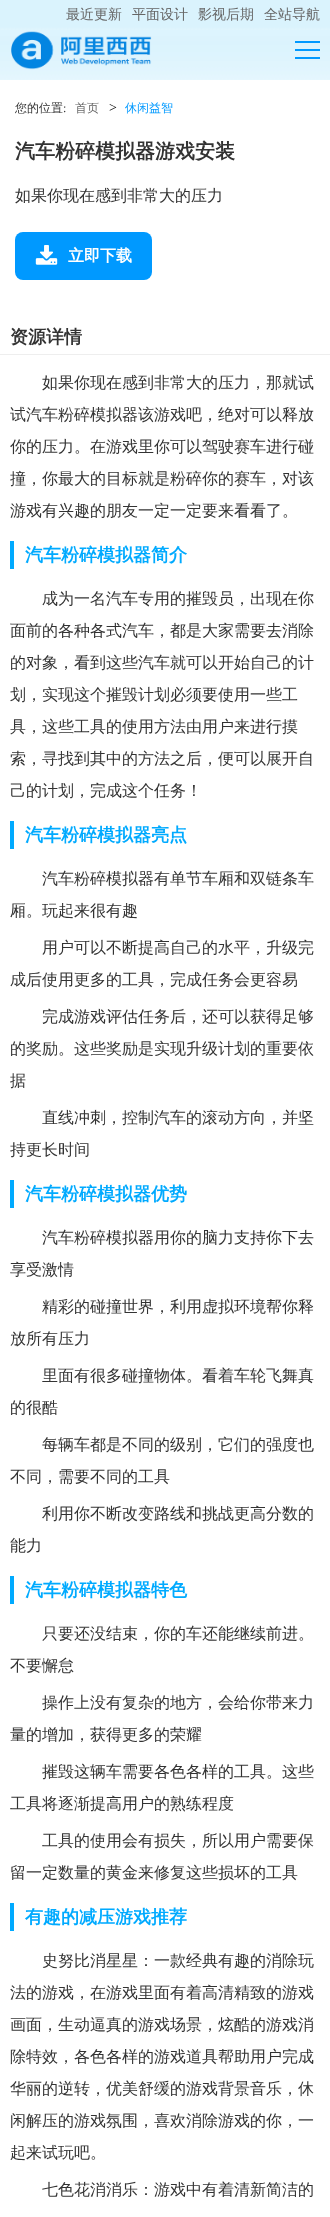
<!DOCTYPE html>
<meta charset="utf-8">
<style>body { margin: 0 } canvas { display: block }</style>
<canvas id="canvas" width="330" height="2217"></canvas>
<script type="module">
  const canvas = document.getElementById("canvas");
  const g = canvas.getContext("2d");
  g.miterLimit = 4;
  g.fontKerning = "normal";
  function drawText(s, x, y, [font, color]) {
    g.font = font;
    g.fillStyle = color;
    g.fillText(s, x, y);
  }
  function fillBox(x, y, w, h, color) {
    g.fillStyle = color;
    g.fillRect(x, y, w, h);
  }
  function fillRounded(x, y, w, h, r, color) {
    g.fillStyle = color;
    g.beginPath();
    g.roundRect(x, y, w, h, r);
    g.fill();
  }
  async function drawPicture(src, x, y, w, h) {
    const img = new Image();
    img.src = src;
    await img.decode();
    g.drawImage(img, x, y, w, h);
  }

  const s1 = ["500 14px WenQuanYi Zen Hei", "#666666"];
  const s2 = ["500 12px WenQuanYi Zen Hei", "#333333"];
  const s3 = ["12px Liberation Serif", "#333333"];
  const s4 = ["500 12px WenQuanYi Zen Hei", "#666666"];
  const s5 = ["14px Liberation Serif", "#000000"];
  const s6 = ["500 12px WenQuanYi Zen Hei", "#0099FF"];
  const s7 = ["bold 20px WenQuanYi Zen Hei", "#333333"];
  const s8 = ["500 16px WenQuanYi Zen Hei", "#333333"];
  const s9 = ["bold 16px WenQuanYi Zen Hei", "#FFFFFF"];
  const s10 = ["bold 18px WenQuanYi Zen Hei", "#333333"];
  const s11 = ["bold 18px WenQuanYi Zen Hei", "#00AAFF"];

  fillBox(0, 0, 330, 2217, "#FFFFFF");
  await drawPicture("pic1.png", 0, 0, 330, 80);
  drawText("最近更新", 66, 19, s1);
  drawText("平面设计", 132, 19, s1);
  drawText("影视后期", 198, 19, s1);
  drawText("全站导航", 264, 19, s1);
  await drawPicture("pic2.png", 11, 31, 141, 39);
  fillBox(295, 41, 25, 2, "#0099FF");
  fillBox(295, 49, 25, 2, "#0099FF");
  fillBox(295, 57, 25, 2, "#0099FF");
  drawText("您的位置", 15, 112, s2);
  drawText(":", 63, 112, s3);
  drawText("首页", 75, 112, s4);
  drawText(">", 109, 112, s5);
  drawText("休闲益智", 125, 112, s6);
  drawText("汽车粉碎模拟器游戏安装", 15, 158, s7);
  drawText("如果你现在感到非常大的压力", 15, 201, s8);
  fillRounded(15, 232, 137, 48, 8, "#0099FF");
  await drawPicture("pic3.png", 35, 245, 23, 20);
  drawText("立即下载", 68, 261, s9);
  fillBox(0, 354, 330, 1, "#EEEEEE");
  drawText("资源详情", 10, 343, s10);
  drawText("如果你现在感到非常大的压力，那就试", 42, 388, s8);
  drawText("试汽车粉碎模拟器该游戏吧，绝对可以释放", 10, 420, s8);
  drawText("你的压力。在游戏里你可以驾驶赛车进行碰", 10, 452, s8);
  drawText("撞，你最大的目标就是粉碎你的赛车，对该", 10, 484, s8);
  drawText("游戏有兴趣的朋友一定一定要来看看了。", 10, 516, s8);
  fillBox(10, 541, 4, 28, "#00AAFF");
  drawText("汽车粉碎模拟器简介", 25, 561, s11);
  drawText("成为一名汽车专用的摧毁员，出现在你", 42, 604, s8);
  drawText("面前的各种各式汽车，都是大家需要去消除", 10, 636, s8);
  drawText("的对象，看到这些汽车就可以开始自己的计", 10, 668, s8);
  drawText("划，实现这个摧毁计划必须要使用一些工", 10, 700, s8);
  drawText("具，这些工具的使用方法由用户来进行摸", 10, 732, s8);
  drawText("索，寻找到其中的方法之后，便可以展开自", 10, 764, s8);
  drawText("己的计划，完成这个任务！", 10, 796, s8);
  fillBox(10, 821, 4, 28, "#00AAFF");
  drawText("汽车粉碎模拟器亮点", 25, 841, s11);
  drawText("汽车粉碎模拟器有单节车厢和双链条车", 42, 884, s8);
  drawText("厢。玩起来很有趣", 10, 916, s8);
  drawText("用户可以不断提高自己的水平，升级完", 42, 953, s8);
  drawText("成后使用更多的工具，完成任务会更容易", 10, 985, s8);
  drawText("完成游戏评估任务后，还可以获得足够", 42, 1022, s8);
  drawText("的奖励。这些奖励是实现升级计划的重要依", 10, 1054, s8);
  drawText("据", 10, 1086, s8);
  drawText("直线冲刺，控制汽车的滚动方向，并坚", 42, 1123, s8);
  drawText("持更长时间", 10, 1155, s8);
  fillBox(10, 1180, 4, 28, "#00AAFF");
  drawText("汽车粉碎模拟器优势", 25, 1200, s11);
  drawText("汽车粉碎模拟器用你的脑力支持你下去", 42, 1243, s8);
  drawText("享受激情", 10, 1275, s8);
  drawText("精彩的碰撞世界，利用虚拟环境帮你释", 42, 1312, s8);
  drawText("放所有压力", 10, 1344, s8);
  drawText("里面有很多碰撞物体。看着车轮飞舞真", 42, 1381, s8);
  drawText("的很酷", 10, 1413, s8);
  drawText("每辆车都是不同的级别，它们的强度也", 42, 1450, s8);
  drawText("不同，需要不同的工具", 10, 1482, s8);
  drawText("利用你不断改变路线和挑战更高分数的", 42, 1519, s8);
  drawText("能力", 10, 1551, s8);
  fillBox(10, 1576, 4, 28, "#00AAFF");
  drawText("汽车粉碎模拟器特色", 25, 1596, s11);
  drawText("只要还没结束，你的车还能继续前进。", 42, 1639, s8);
  drawText("不要懈怠", 10, 1671, s8);
  drawText("操作上没有复杂的地方，会给你带来力", 42, 1708, s8);
  drawText("量的增加，获得更多的荣耀", 10, 1740, s8);
  drawText("摧毁这辆车需要各色各样的工具。这些", 42, 1777, s8);
  drawText("工具将逐渐提高用户的熟练程度", 10, 1809, s8);
  drawText("工具的使用会有损失，所以用户需要保", 42, 1846, s8);
  drawText("留一定数量的黄金来修复这些损坏的工具", 10, 1878, s8);
  fillBox(10, 1903, 4, 28, "#00AAFF");
  drawText("有趣的减压游戏推荐", 25, 1923, s11);
  drawText("史努比消星星：一款经典有趣的消除玩", 42, 1966, s8);
  drawText("法的游戏，在游戏里面有着高清精致的游戏", 10, 1998, s8);
  drawText("画面，生动逼真的游戏场景，炫酷的游戏消", 10, 2030, s8);
  drawText("除特效，各色各样的游戏道具帮助用户完成", 10, 2062, s8);
  drawText("华丽的逆转，优美舒缓的游戏背景音乐，休", 10, 2094, s8);
  drawText("闲解压的游戏氛围，喜欢消除游戏的你，一", 10, 2126, s8);
  drawText("起来试玩吧。", 10, 2158, s8);
  drawText("七色花消消乐：游戏中有着清新简洁的", 42, 2195, s8);
</script>
